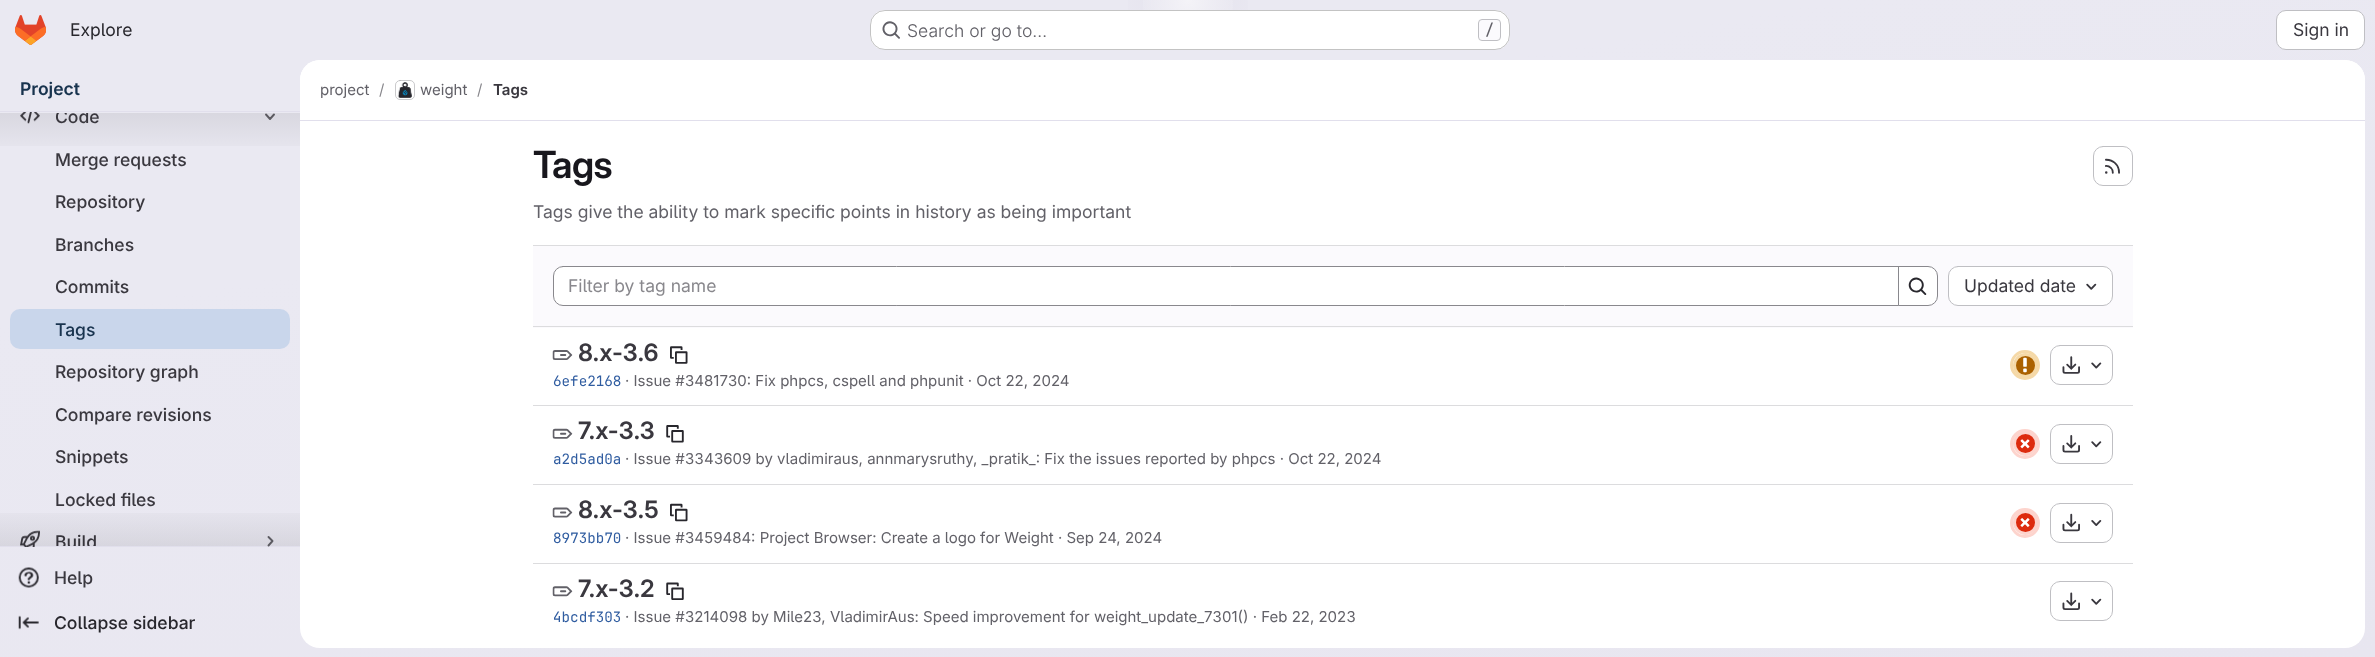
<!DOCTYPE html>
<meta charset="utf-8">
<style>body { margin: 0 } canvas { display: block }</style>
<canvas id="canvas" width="2375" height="657"></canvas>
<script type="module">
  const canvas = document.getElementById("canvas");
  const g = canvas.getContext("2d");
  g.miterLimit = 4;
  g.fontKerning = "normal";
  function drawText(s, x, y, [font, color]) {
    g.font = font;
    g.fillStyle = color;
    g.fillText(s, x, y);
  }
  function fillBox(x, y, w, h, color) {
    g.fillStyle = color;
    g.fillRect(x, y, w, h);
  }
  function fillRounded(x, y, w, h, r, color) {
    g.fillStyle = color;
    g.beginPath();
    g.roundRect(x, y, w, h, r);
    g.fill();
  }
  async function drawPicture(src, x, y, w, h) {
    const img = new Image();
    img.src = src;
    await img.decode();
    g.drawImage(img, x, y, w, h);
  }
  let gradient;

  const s1 = ["17.5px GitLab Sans", "#28272D"];
  const s2 = ["300 17.5px GitLab Sans", "#626168"];
  const s3 = ["500 15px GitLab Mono", "#626168"];
  const s4 = ["17.5px GitLab Sans", "#3A383F"];
  const s5 = ["600 17.5px 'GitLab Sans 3'", "#18334E"];
  const s6 = ["500 17.5px GitLab Sans", "#3A383F"];
  const s7 = ["500 17.5px GitLab Sans", "#18334E"];
  const s8 = ["500 17.5px GitLab Sans", "#28272D"];
  const s9 = ["15px GitLab Sans", "#626168"];
  const s10 = ["15px GitLab Sans", "#89888D"];
  const s11 = ["600 15px 'GitLab Sans 3'", "#3A383F"];
  const s12 = ["600 37.5px GitLab Sans", "#18171D"];
  const s13 = ["17.5px GitLab Sans", "#626168"];
  const s14 = ["17.5px GitLab Sans", "#89888D"];
  const s15 = ["600 24px 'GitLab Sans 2'", "#3A383F"];
  const s16 = ["14.25px GitLab Mono", "#2F5CA0"];

  fillBox(0, 0, 2375, 657, "#FFFFFF");
  gradient = g.createLinearGradient(1280, 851, 1095, -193);
  gradient.addColorStop(0, "#E8E6F0");
  gradient.addColorStop(0.7, "#EAE9F2");
  g.fillStyle = gradient;
  g.fillRect(0, 0, 2375, 657);
  gradient = g.createRadialGradient(1188, 0, 0, 1188, 0, 1188);
  gradient.addColorStop(0, "#E4E2ED");
  gradient.addColorStop(0.07, "rgba(228, 226, 237, 0)");
  g.fillStyle = gradient;
  g.beginPath();
  g.rect(1128, 0, 120, 10);
  g.save();
  g.clip();
  g.scale(1, 658 / 1188);
  g.fillRect(0, 0, 2375, 1187);
  g.restore();
  gradient = g.createRadialGradient(1188, 0, 0, 1188, 0, 1357);
  gradient.addColorStop(0, "rgba(255, 255, 255, 0.6)");
  gradient.addColorStop(0.04, "rgba(255, 255, 255, 0)");
  g.fillStyle = gradient;
  g.fillRect(1143, 0, 90, 44);
  await drawPicture("pic1.png", 15, 15, 31, 30);
  drawText("Explore", 70, 36, s1);
  fillRounded(870, 10, 640, 40, 15, "#FFFFFF");
  g.beginPath();
  g.roundRect(870.5, 10.5, 639, 39, 14.5);
  g.strokeStyle = "rgba(5, 5, 6, 0.24)";
  g.stroke();
  await drawPicture("pic2.png", 882, 21, 18, 18);
  drawText("Search or go to…", 907, 37, s2);
  g.fillStyle = "#FBFAFD";
  g.beginPath();
  g.roundRect(1478.5, 19.5, 22, 21, 3.5);
  g.fill();
  g.strokeStyle = "#BFBFC3";
  g.stroke();
  drawText("/", 1485, 35, s3);
  g.fillStyle = "#FFFFFF";
  g.beginPath();
  g.roundRect(2276.5, 10.5, 88, 39, 9.5);
  g.fill();
  g.stroke();
  drawText("Sign in", 2293, 36, s4);
  drawText("Project", 20, 95, s5);
  fillBox(0, 111, 300, 1, "#E1DFEC");
  fillBox(0, 546, 300, 1, "#E1DFEC");
  await drawPicture("pic3.png", 20, 112, 20, 12);
  g.beginPath();
  g.moveTo(274, 114.5);
  g.lineTo(270, 119);
  g.lineTo(266, 114.5);
  g.strokeStyle = "#626168";
  g.lineWidth = 1.9;
  g.lineCap = "round";
  g.lineJoin = "round";
  g.stroke();
  gradient = g.createLinearGradient(150, 112, 150, 158);
  gradient.addColorStop(0, "rgba(5, 5, 6, 0.08)");
  gradient.addColorStop(1, "rgba(5, 5, 6, 0)");
  g.fillStyle = gradient;
  g.fillRect(0, 113, 300, 33);
  g.save();
  g.beginPath();
  g.rect(55, 113, 195, 17);
  g.clip();
  drawText("Code", 55, 123, s6);
  g.restore();
  drawText("Merge requests", 55, 166, s6);
  drawText("Repository", 55, 208, s6);
  drawText("Branches", 55, 251, s6);
  drawText("Commits", 55, 293, s6);
  fillRounded(10, 309, 280, 40, 10, "#C9D6EB");
  drawText("Tags", 55, 336, s7);
  drawText("Repository graph", 55, 378, s6);
  drawText("Compare revisions", 55, 421, s6);
  drawText("Snippets", 55, 463, s6);
  drawText("Locked files", 55, 506, s6);
  await drawPicture("pic4.png", 20, 530, 20, 17);
  g.save();
  g.beginPath();
  g.rect(55, 529, 195, 17);
  g.clip();
  drawText("Build", 55, 548, s6);
  g.restore();
  g.beginPath();
  g.moveTo(268.5, 537);
  g.lineTo(272.5, 541);
  g.lineTo(268.5, 545.5);
  g.stroke();
  gradient = g.createLinearGradient(150, 501, 150, 546);
  gradient.addColorStop(0, "rgba(5, 5, 6, 0)");
  gradient.addColorStop(1, "rgba(5, 5, 6, 0.08)");
  g.fillStyle = gradient;
  g.fillRect(0, 513, 300, 33);
  await drawPicture("pic5.png", 18, 567, 21, 21);
  drawText("Help", 54, 584, s6);
  await drawPicture("pic6.png", 18, 615, 21, 15);
  drawText("Collapse sidebar", 54, 629, s8);
  fillRounded(300, 60, 2065, 588, 20, "#FFFFFF");
  g.beginPath();
  g.roundRect(300, 60, 2065, 61, [20, 20, 0, 0]);
  g.fill();
  fillBox(300, 120, 2065, 1, "#E1DFEC");
  drawText("project", 320, 95, s9);
  drawText("/", 379, 95, s10);
  g.beginPath();
  g.roundRect(395.5, 80.5, 19, 19, 4.5);
  g.strokeStyle = "#DCDCDE";
  g.lineWidth = 1;
  g.lineJoin = "miter";
  g.stroke();
  await drawPicture("pic7.png", 397, 82, 15, 16);
  g.beginPath();
  g.roundRect(395.5, 80.5, 19, 19, 4.5);
  g.strokeStyle = "rgba(5, 5, 6, 0.08)";
  g.stroke();
  drawText("weight", 420, 95, s9);
  drawText("/", 477, 95, s10);
  drawText("Tags", 493, 95, s11);
  g.letterSpacing = "-0.5px";
  drawText("Tags", 533, 178, s12);
  g.beginPath();
  g.roundRect(2093.5, 146.5, 39, 39, 9.5);
  g.strokeStyle = "#BFBFC3";
  g.stroke();
  await drawPicture("pic8.png", 2105, 158, 15, 16);
  g.letterSpacing = "0px";
  drawText("Tags give the ability to mark specific points in history as being important", 533, 218, s13);
  fillBox(533, 246, 1600, 82, "#FBFAFD");
  fillBox(533, 245, 1600, 1, "#DCDCDE");
  fillBox(533, 326, 1600, 1, "#DCDCDE");
  g.fillStyle = "#FFFFFF";
  g.beginPath();
  g.roundRect(553.5, 266.5, 1345, 39, [9.5, 0, 0, 9.5]);
  g.fill();
  g.strokeStyle = "#89888D";
  g.stroke();
  drawText("Filter by tag name", 568, 292, s14);
  g.fillStyle = "#FFFFFF";
  g.beginPath();
  g.roundRect(1898.5, 266.5, 39, 39, [0, 9.5, 9.5, 0]);
  g.fill();
  g.stroke();
  await drawPicture("pic9.png", 1908, 277, 19, 18);
  g.beginPath();
  g.roundRect(1948.5, 266.5, 164, 39, 9.5);
  g.fill();
  g.strokeStyle = "#BFBFC3";
  g.stroke();
  drawText("Updated date", 1964, 292, s4);
  await drawPicture("pic10.png", 2086, 283, 11, 7);
  fillBox(533, 405, 1600, 1, "#DCDCDE");
  await drawPicture("pic11.png", 552, 350, 21, 10);
  drawText("8.x-3.6", 578, 361, s15);
  await drawPicture("pic12.png", 670, 346, 18, 18);
  drawText("6efe2168", 553, 386, s16);
  drawText("· Issue #3481730: Fix phpcs, cspell and phpunit · Oct 22, 2024", 625, 386, s9);
  g.beginPath();
  g.arc(2025, 365, 13.5, 0, Math.PI * 2);
  g.strokeStyle = "#F5D9A8";
  g.lineWidth = 3;
  g.stroke();
  g.fillStyle = "#AB6100";
  g.beginPath();
  g.arc(2025.5, 365.5, 11, 0, Math.PI * 2);
  g.fill();
  g.stroke();
  await drawPicture("pic13.png", 2023, 357, 4, 16);
  g.beginPath();
  g.roundRect(2050.5, 345.5, 62, 39, 9.5);
  g.strokeStyle = "#BFBFC3";
  g.lineWidth = 1;
  g.stroke();
  await drawPicture("pic14.png", 2062, 356, 18, 18);
  await drawPicture("pic15.png", 2091, 362, 11, 7);
  fillBox(533, 484, 1600, 1, "#DCDCDE");
  await drawPicture("pic16.png", 552, 428, 21, 11);
  drawText("7.x-3.3", 578, 439, s15);
  await drawPicture("pic17.png", 666, 425, 18, 18);
  drawText("a2d5ad0a", 553, 464, s16);
  drawText("· Issue #3343609 by vladimiraus, annmarysruthy, _pratik_: Fix the issues reported by phpcs · Oct 22, 2024", 625, 464, s9);
  g.beginPath();
  g.arc(2025, 444, 13.5, 0, Math.PI * 2);
  g.strokeStyle = "#FDD4CD";
  g.lineWidth = 3;
  g.stroke();
  g.fillStyle = "#DD2B0E";
  g.beginPath();
  g.arc(2025.5, 443.5, 11, 0, Math.PI * 2);
  g.fill();
  g.stroke();
  await drawPicture("pic18.png", 2020, 439, 10, 10);
  g.beginPath();
  g.roundRect(2050.5, 424.5, 62, 39, 9.5);
  g.strokeStyle = "#BFBFC3";
  g.lineWidth = 1;
  g.stroke();
  await drawPicture("pic19.png", 2062, 435, 18, 18);
  await drawPicture("pic20.png", 2091, 441, 11, 7);
  fillBox(533, 563, 1600, 1, "#DCDCDE");
  await drawPicture("pic21.png", 552, 507, 21, 11);
  drawText("8.x-3.5", 578, 518, s15);
  await drawPicture("pic22.png", 670, 503, 18, 19);
  drawText("8973bb70", 553, 543, s16);
  drawText("· Issue #3459484: Project Browser: Create a logo for Weight · Sep 24, 2024", 625, 543, s9);
  g.beginPath();
  g.arc(2025, 523, 13.5, 0, Math.PI * 2);
  g.strokeStyle = "#FDD4CD";
  g.lineWidth = 3;
  g.stroke();
  g.fillStyle = "#DD2B0E";
  g.beginPath();
  g.arc(2025.5, 522.5, 11, 0, Math.PI * 2);
  g.fill();
  g.stroke();
  await drawPicture("pic23.png", 2020, 518, 10, 9);
  g.beginPath();
  g.roundRect(2050.5, 503.5, 62, 39, 9.5);
  g.strokeStyle = "#BFBFC3";
  g.lineWidth = 1;
  g.stroke();
  await drawPicture("pic24.png", 2062, 513, 18, 19);
  await drawPicture("pic25.png", 2091, 520, 11, 6);
  await drawPicture("pic26.png", 552, 586, 21, 11);
  drawText("7.x-3.2", 578, 597, s15);
  await drawPicture("pic27.png", 666, 582, 18, 18);
  drawText("4bcdf303", 553, 622, s16);
  drawText("· Issue #3214098 by Mile23, VladimirAus: Speed improvement for weight_update_7301() · Feb 22, 2023", 625, 622, s9);
  g.beginPath();
  g.roundRect(2050.5, 581.5, 62, 39, 9.5);
  g.stroke();
  await drawPicture("pic28.png", 2062, 592, 18, 18);
  await drawPicture("pic10.png", 2091, 598, 11, 7);
</script>
